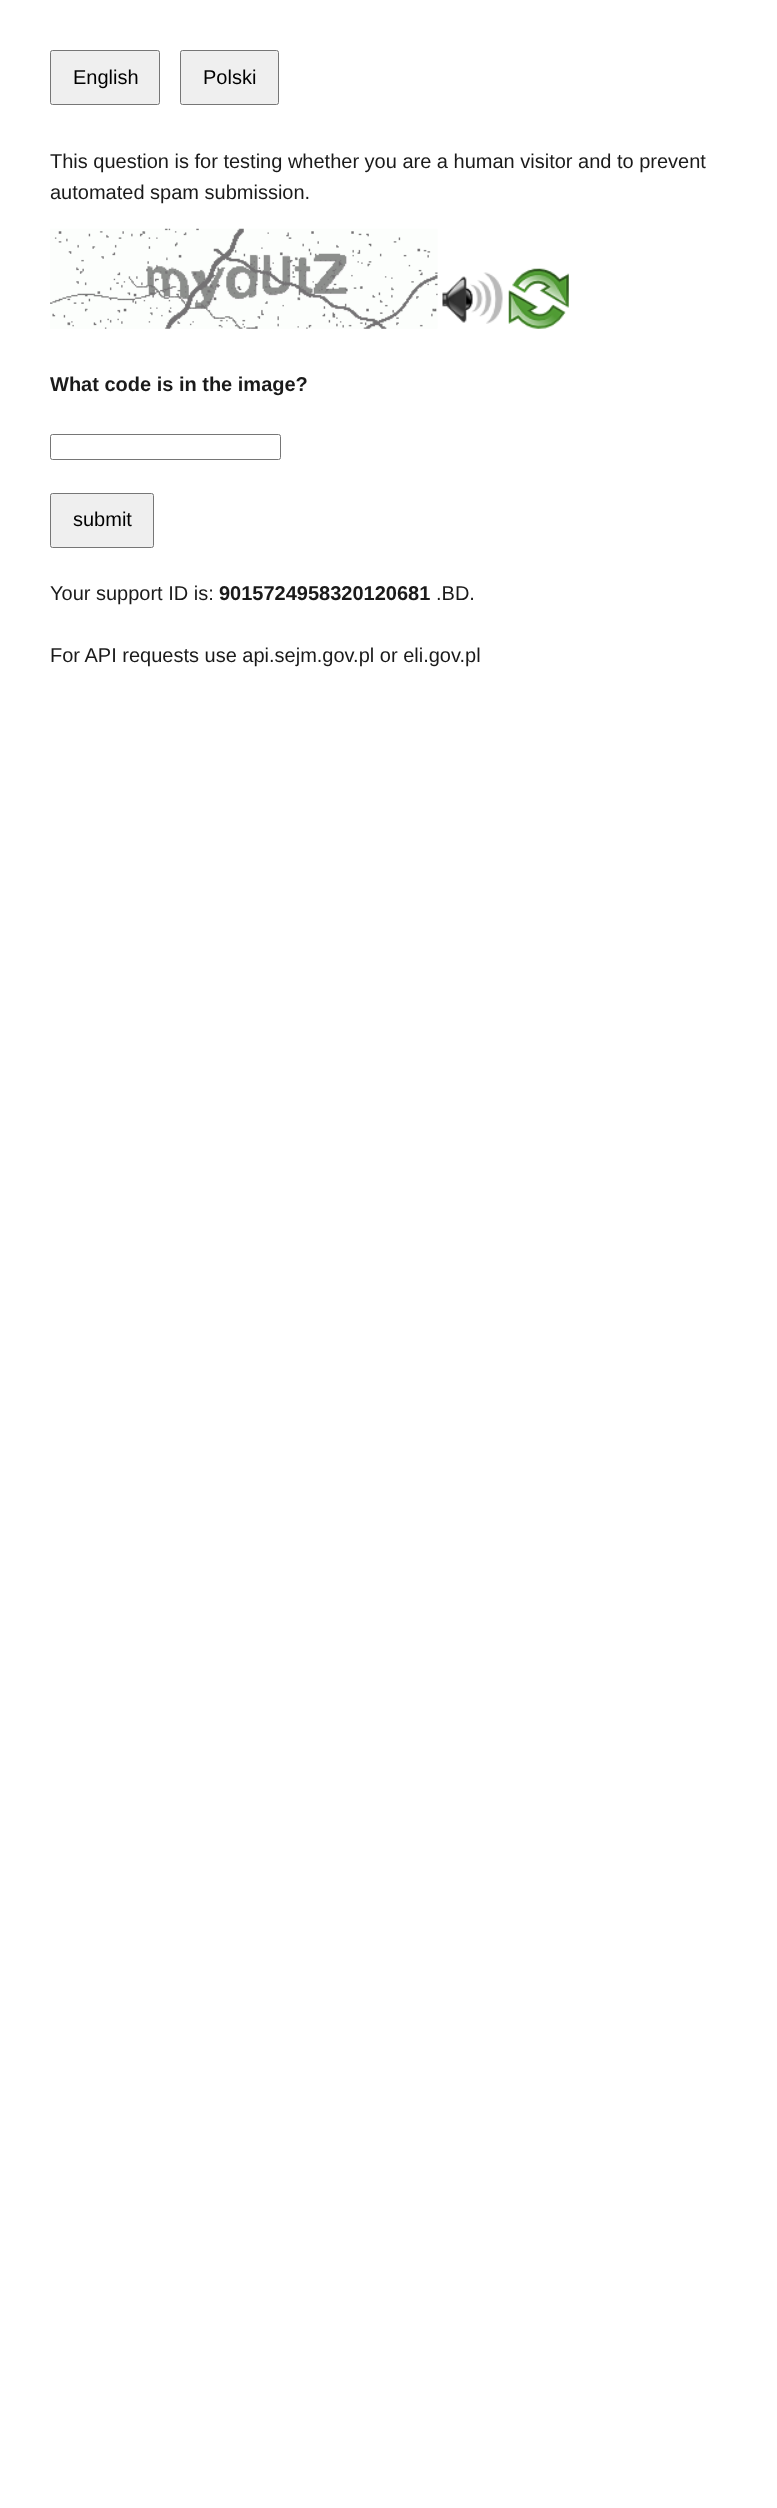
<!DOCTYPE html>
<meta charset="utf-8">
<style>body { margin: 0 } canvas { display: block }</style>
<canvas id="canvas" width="777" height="2508"></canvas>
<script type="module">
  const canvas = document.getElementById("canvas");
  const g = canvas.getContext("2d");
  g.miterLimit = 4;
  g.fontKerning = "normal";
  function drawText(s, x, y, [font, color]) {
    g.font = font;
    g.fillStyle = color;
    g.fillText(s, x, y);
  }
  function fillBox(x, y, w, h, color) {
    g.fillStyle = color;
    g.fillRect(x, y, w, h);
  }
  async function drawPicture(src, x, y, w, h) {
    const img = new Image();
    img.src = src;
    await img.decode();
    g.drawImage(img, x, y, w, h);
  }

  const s1 = ["20px Liberation Sans", "#000000"];
  const s2 = ["20px Liberation Sans", "#1A1A1A"];
  const s3 = ["bold 20px Liberation Sans", "#1A1A1A"];

  fillBox(0, 0, 777, 2508, "#FFFFFF");
  g.fillStyle = "#EFEFEF";
  g.beginPath();
  g.roundRect(50.5, 50.5, 109, 54, 2);
  g.fill();
  g.strokeStyle = "#767676";
  g.stroke();
  drawText("English", 73, 84, s1);
  g.fillStyle = "#EFEFEF";
  g.beginPath();
  g.roundRect(180.5, 50.5, 98, 54, 2);
  g.fill();
  g.stroke();
  drawText("Polski", 203, 84, s1);
  drawText("This question is for testing whether you are a human visitor and to prevent", 50, 168, s2);
  drawText("automated spam submission.", 50, 199, s2);
  await drawPicture("pic1.png", 50, 228, 388, 101);
  await drawPicture("pic2.png", 442, 272, 61, 52);
  await drawPicture("pic3.png", 508, 268, 61, 61);
  drawText("What code is in the image?", 50, 391, s3);
  g.beginPath();
  g.roundRect(50.5, 434.5, 230, 25, 2);
  g.stroke();
  g.fillStyle = "#EFEFEF";
  g.beginPath();
  g.roundRect(50.5, 493.5, 103, 54, 2);
  g.fill();
  g.stroke();
  drawText("submit", 73, 526, s1);
  drawText("Your support ID is:", 50, 600, s2);
  drawText("9015724958320120681", 219, 600, s3);
  drawText(".BD.", 436, 600, s2);
  drawText("For API requests use api.sejm.gov.pl or eli.gov.pl", 50, 662, s2);
</script>
